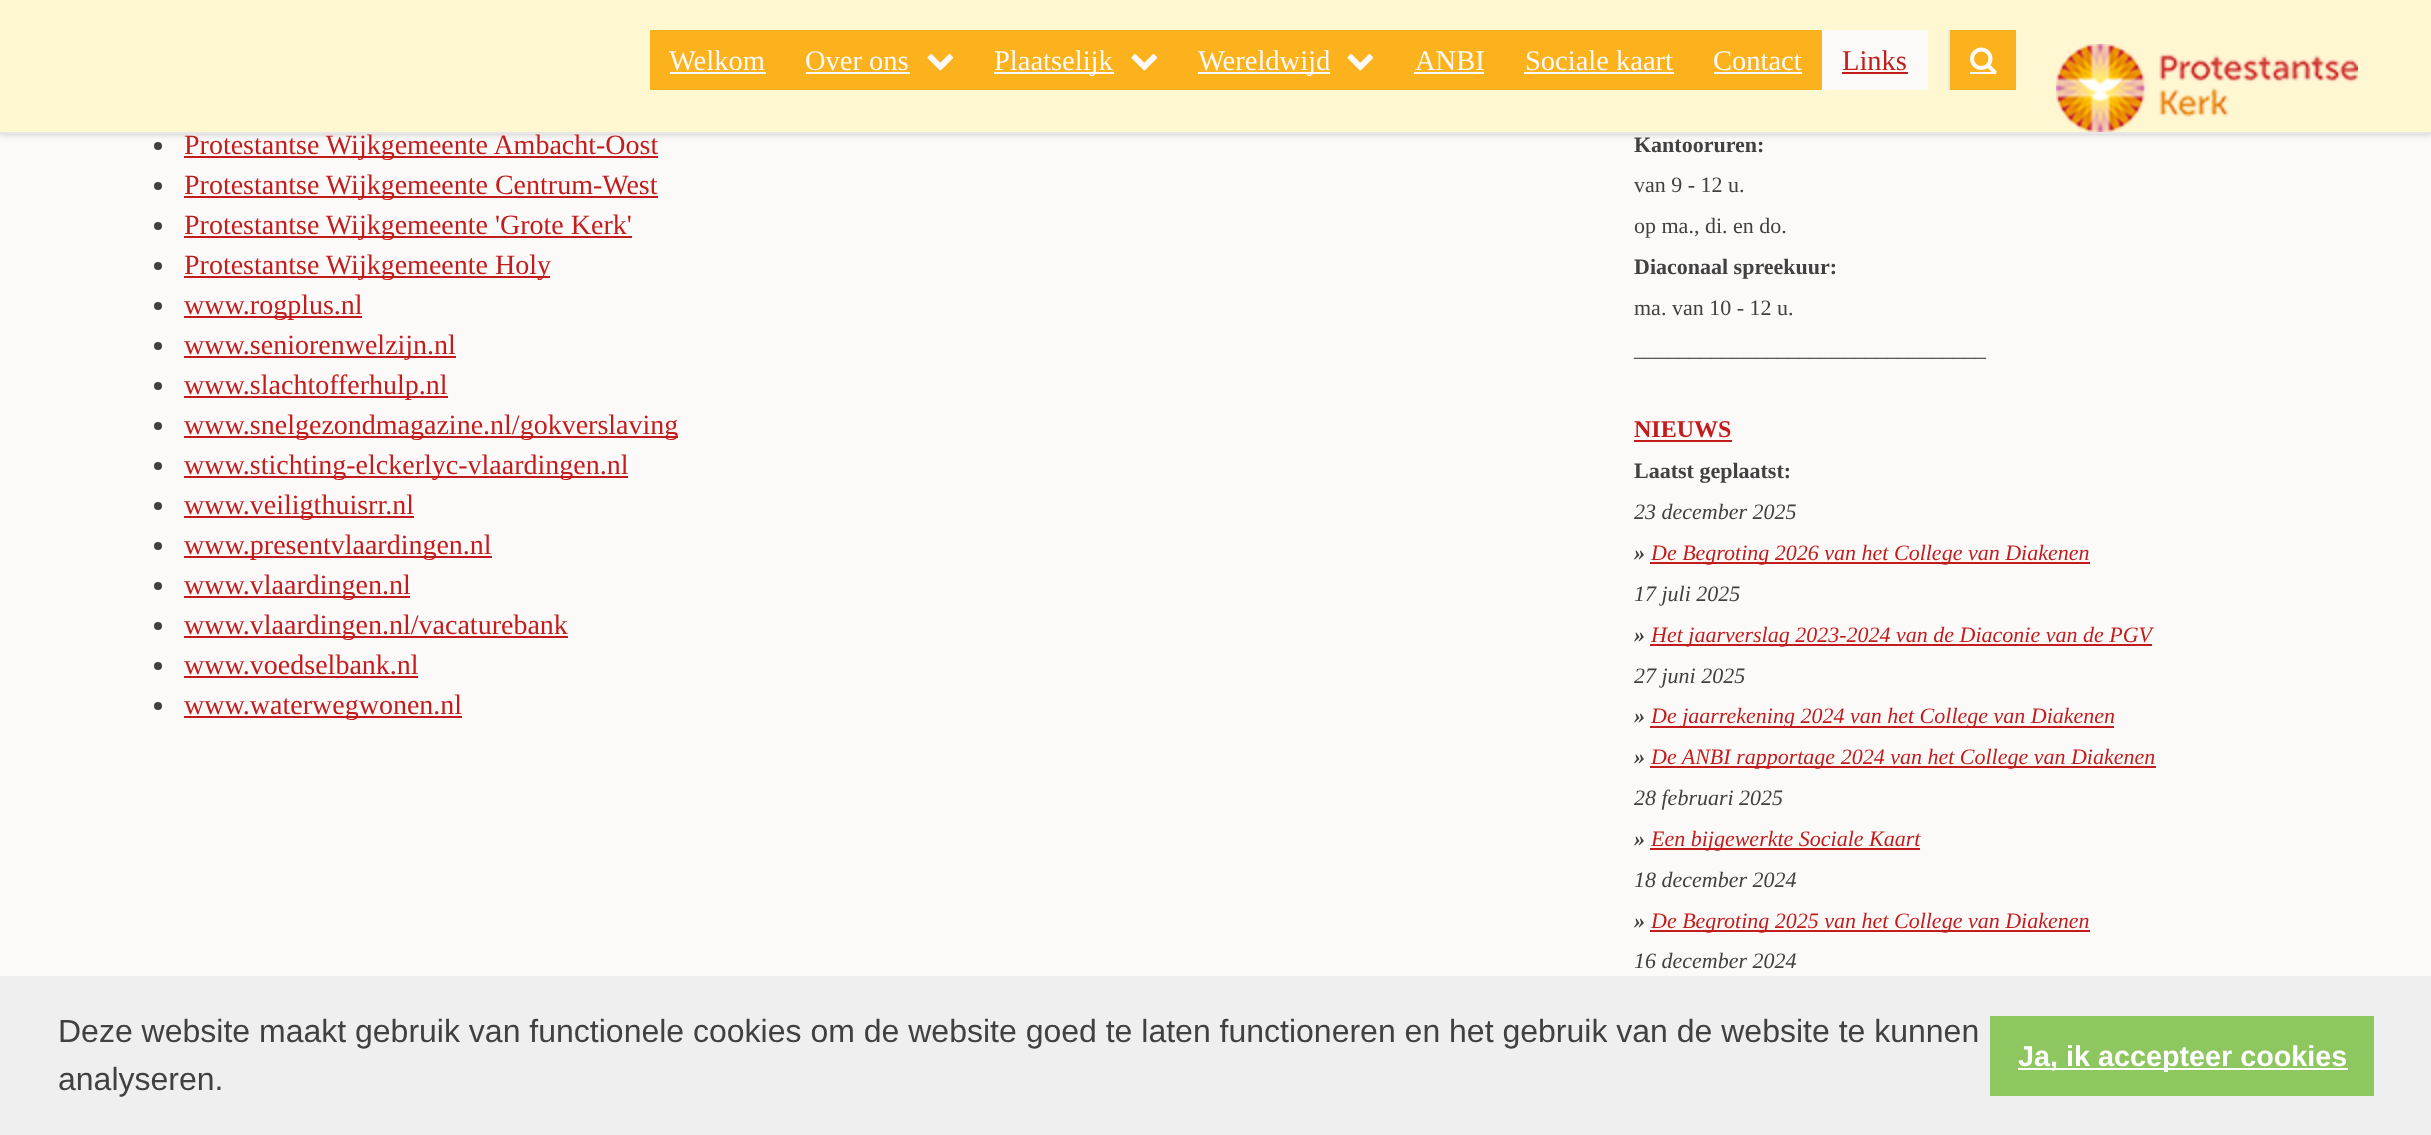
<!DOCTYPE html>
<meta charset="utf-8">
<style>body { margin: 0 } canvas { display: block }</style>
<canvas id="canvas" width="2431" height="1135"></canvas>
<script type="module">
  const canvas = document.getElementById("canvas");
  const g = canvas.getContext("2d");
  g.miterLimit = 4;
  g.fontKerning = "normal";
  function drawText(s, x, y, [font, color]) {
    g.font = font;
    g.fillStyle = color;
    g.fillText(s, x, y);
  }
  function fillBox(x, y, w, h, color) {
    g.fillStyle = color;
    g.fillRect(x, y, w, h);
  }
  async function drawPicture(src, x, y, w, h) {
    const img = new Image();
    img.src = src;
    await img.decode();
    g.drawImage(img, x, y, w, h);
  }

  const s1 = ["28.5px Liberation Serif", "#FCF9F9"];
  const s2 = ["28.5px Liberation Serif", "#C21D1C"];
  const s3 = ["28px Liberation Serif", "#C21D1C"];
  const s4 = ["bold 22px Liberation Serif", "#414141"];
  const s5 = ["22px Liberation Serif", "#414141"];
  const s6 = ["bold 24px Liberation Serif", "#C21D1C"];
  const s7 = ["italic 22px Liberation Serif", "#414141"];
  const s8 = ["italic bold 22px Liberation Serif", "#414141"];
  const s9 = ["italic 22px Liberation Serif", "#C21D1C"];
  const s10 = ["32px Liberation Sans", "#414141"];
  const s11 = ["bold 28.75px Liberation Sans", "#FFFFFF"];

  fillBox(0, 0, 2431, 1135, "#FCF9F9");
  g.fillStyle = "#414141";
  g.beginPath();
  g.arc(158, 146, 4, 0, Math.PI * 2);
  g.fill();
  g.fillStyle = "rgba(0, 0, 0, 0.22)";
  g.filter = "blur(3px)";
  g.beginPath();
  g.rect(0, 0, 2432, 134);
  g.fill();
  g.filter = "none";
  fillBox(0, 0, 2431, 132, "#FFF6D2");
  fillBox(0, 132, 2431, 2, "#E7E7E7");
  fillBox(650, 30, 1172, 60, "#FCB21C");
  drawText("Welkom", 669, 70, s1);
  fillBox(670, 72, 96, 2, "#FCF9F9");
  drawText("Over ons", 805, 70, s1);
  fillBox(806, 72, 104, 2, "#FCF9F9");
  await drawPicture("pic1.png", 927, 54, 27, 17);
  fillBox(994, 72, 120, 2, "#FCF9F9");
  drawText("Plaatselijk", 994, 70, s1);
  await drawPicture("pic1.png", 1131, 54, 27, 17);
  fillBox(1198, 72, 132, 2, "#FCF9F9");
  drawText("Wereldwijd", 1198, 70, s1);
  await drawPicture("pic1.png", 1347, 54, 27, 17);
  drawText("ANBI", 1415, 70, s1);
  fillBox(1414, 72, 70, 2, "#FCF9F9");
  drawText("Sociale kaart", 1525, 70, s1);
  fillBox(1524, 72, 150, 2, "#FCF9F9");
  drawText("Contact", 1713, 70, s1);
  fillBox(1714, 72, 88, 2, "#FCF9F9");
  fillBox(1822, 30, 106, 60, "#FCF9F9");
  drawText("Links", 1842, 70, s2);
  fillBox(1842, 72, 66, 2, "#C21D1C");
  fillBox(1950, 30, 66, 60, "#FCB21C");
  fillBox(1948, 30, 2, 60, "#E7E7E7");
  fillBox(1970, 72, 26, 2, "#FCF9F9");
  await drawPicture("pic2.png", 1970, 47, 27, 28);
  await drawPicture("pic3.png", 2056, 44, 302, 88);
  fillBox(184, 156, 474, 2, "#C21D1C");
  drawText("Protestantse Wijkgemeente Ambacht-Oost", 184, 154, s3);
  g.fillStyle = "#414141";
  g.beginPath();
  g.arc(158, 186, 4, 0, Math.PI * 2);
  g.fill();
  fillBox(184, 196, 474, 2, "#C21D1C");
  drawText("Protestantse Wijkgemeente Centrum-West", 184, 194, s3);
  g.fillStyle = "#414141";
  g.beginPath();
  g.arc(158, 226, 4, 0, Math.PI * 2);
  g.fill();
  fillBox(184, 236, 448, 2, "#C21D1C");
  drawText("Protestantse Wijkgemeente 'Grote Kerk'", 184, 234, s3);
  g.fillStyle = "#414141";
  g.beginPath();
  g.arc(158, 266, 4, 0, Math.PI * 2);
  g.fill();
  fillBox(184, 276, 366, 2, "#C21D1C");
  drawText("Protestantse Wijkgemeente Holy", 184, 274, s3);
  g.fillStyle = "#414141";
  g.beginPath();
  g.arc(158, 306, 4, 0, Math.PI * 2);
  g.fill();
  fillBox(184, 316, 178, 2, "#C21D1C");
  drawText("www.rogplus.nl", 184, 314, s3);
  g.fillStyle = "#414141";
  g.beginPath();
  g.arc(158, 346, 4, 0, Math.PI * 2);
  g.fill();
  fillBox(184, 356, 272, 2, "#C21D1C");
  drawText("www.seniorenwelzijn.nl", 184, 354, s3);
  g.fillStyle = "#414141";
  g.beginPath();
  g.arc(158, 386, 4, 0, Math.PI * 2);
  g.fill();
  fillBox(184, 396, 264, 2, "#C21D1C");
  drawText("www.slachtofferhulp.nl", 184, 394, s3);
  g.fillStyle = "#414141";
  g.beginPath();
  g.arc(158, 426, 4, 0, Math.PI * 2);
  g.fill();
  fillBox(184, 436, 494, 2, "#C21D1C");
  drawText("www.snelgezondmagazine.nl/gokverslaving", 184, 434, s3);
  g.fillStyle = "#414141";
  g.beginPath();
  g.arc(158, 466, 4, 0, Math.PI * 2);
  g.fill();
  fillBox(184, 476, 444, 2, "#C21D1C");
  drawText("www.stichting-elckerlyc-vlaardingen.nl", 184, 474, s3);
  g.fillStyle = "#414141";
  g.beginPath();
  g.arc(158, 506, 4, 0, Math.PI * 2);
  g.fill();
  fillBox(184, 516, 230, 2, "#C21D1C");
  drawText("www.veiligthuisrr.nl", 184, 514, s3);
  g.fillStyle = "#414141";
  g.beginPath();
  g.arc(158, 546, 4, 0, Math.PI * 2);
  g.fill();
  fillBox(184, 556, 308, 2, "#C21D1C");
  drawText("www.presentvlaardingen.nl", 184, 554, s3);
  g.fillStyle = "#414141";
  g.beginPath();
  g.arc(158, 586, 4, 0, Math.PI * 2);
  g.fill();
  fillBox(184, 596, 226, 2, "#C21D1C");
  drawText("www.vlaardingen.nl", 184, 594, s3);
  g.fillStyle = "#414141";
  g.beginPath();
  g.arc(158, 626, 4, 0, Math.PI * 2);
  g.fill();
  fillBox(184, 636, 384, 2, "#C21D1C");
  drawText("www.vlaardingen.nl/vacaturebank", 184, 634, s3);
  g.fillStyle = "#414141";
  g.beginPath();
  g.arc(158, 666, 4, 0, Math.PI * 2);
  g.fill();
  drawText("www.voedselbank.nl", 184, 674, s3);
  fillBox(184, 676, 234, 2, "#C21D1C");
  g.fillStyle = "#414141";
  g.beginPath();
  g.arc(158, 706, 4, 0, Math.PI * 2);
  g.fill();
  fillBox(184, 716, 278, 2, "#C21D1C");
  drawText("www.waterwegwonen.nl", 184, 714, s3);
  drawText("Kantooruren:", 1634, 152, s4);
  drawText("van 9 - 12 u.", 1634, 192, s5);
  drawText("op ma., di. en do.", 1634, 233, s5);
  drawText("Diaconaal spreekuur:", 1634, 274, s4);
  drawText("ma. van 10 - 12 u.", 1634, 315, s5);
  drawText("________________________________", 1634, 356, s5);
  drawText("NIEUWS", 1634, 437, s6);
  fillBox(1634, 440, 98, 2, "#C21D1C");
  drawText("Laatst geplaatst:", 1634, 478, s4);
  drawText("23 december 2025", 1634, 519, s7);
  drawText("»", 1634, 560, s8);
  fillBox(1650, 562, 440, 2, "#C21D1C");
  drawText("De Begroting 2026 van het College van Diakenen", 1651, 560, s9);
  drawText("17 juli 2025", 1634, 601, s7);
  drawText("»", 1634, 642, s8);
  fillBox(1650, 644, 502, 2, "#C21D1C");
  drawText("Het jaarverslag 2023-2024 van de Diaconie van de PGV", 1651, 642, s9);
  drawText("27 juni 2025", 1634, 683, s7);
  drawText("»", 1634, 723, s8);
  fillBox(1650, 726, 464, 2, "#C21D1C");
  drawText("De jaarrekening 2024 van het College van Diakenen", 1651, 723, s9);
  drawText("»", 1634, 764, s8);
  fillBox(1650, 766, 506, 2, "#C21D1C");
  drawText("De ANBI rapportage 2024 van het College van Diakenen", 1651, 764, s9);
  drawText("28 februari 2025", 1634, 805, s7);
  drawText("»", 1634, 846, s8);
  fillBox(1650, 848, 270, 2, "#C21D1C");
  drawText("Een bijgewerkte Sociale Kaart", 1651, 846, s9);
  drawText("18 december 2024", 1634, 887, s7);
  drawText("»", 1634, 928, s8);
  fillBox(1650, 930, 440, 2, "#C21D1C");
  drawText("De Begroting 2025 van het College van Diakenen", 1651, 928, s9);
  drawText("16 december 2024", 1634, 968, s7);
  fillBox(0, 976, 2431, 159, "#EFEFEF");
  drawText("Deze website maakt gebruik van functionele cookies om de website goed te laten functioneren en het gebruik van de website te kunnen", 58, 1042, s10);
  drawText("analyseren.", 58, 1090, s10);
  fillBox(1990, 1016, 384, 80, "#8EC760");
  fillBox(2018, 1068, 330, 2, "#FFFFFF");
  drawText("Ja, ik accepteer cookies", 2018, 1066, s11);
</script>
